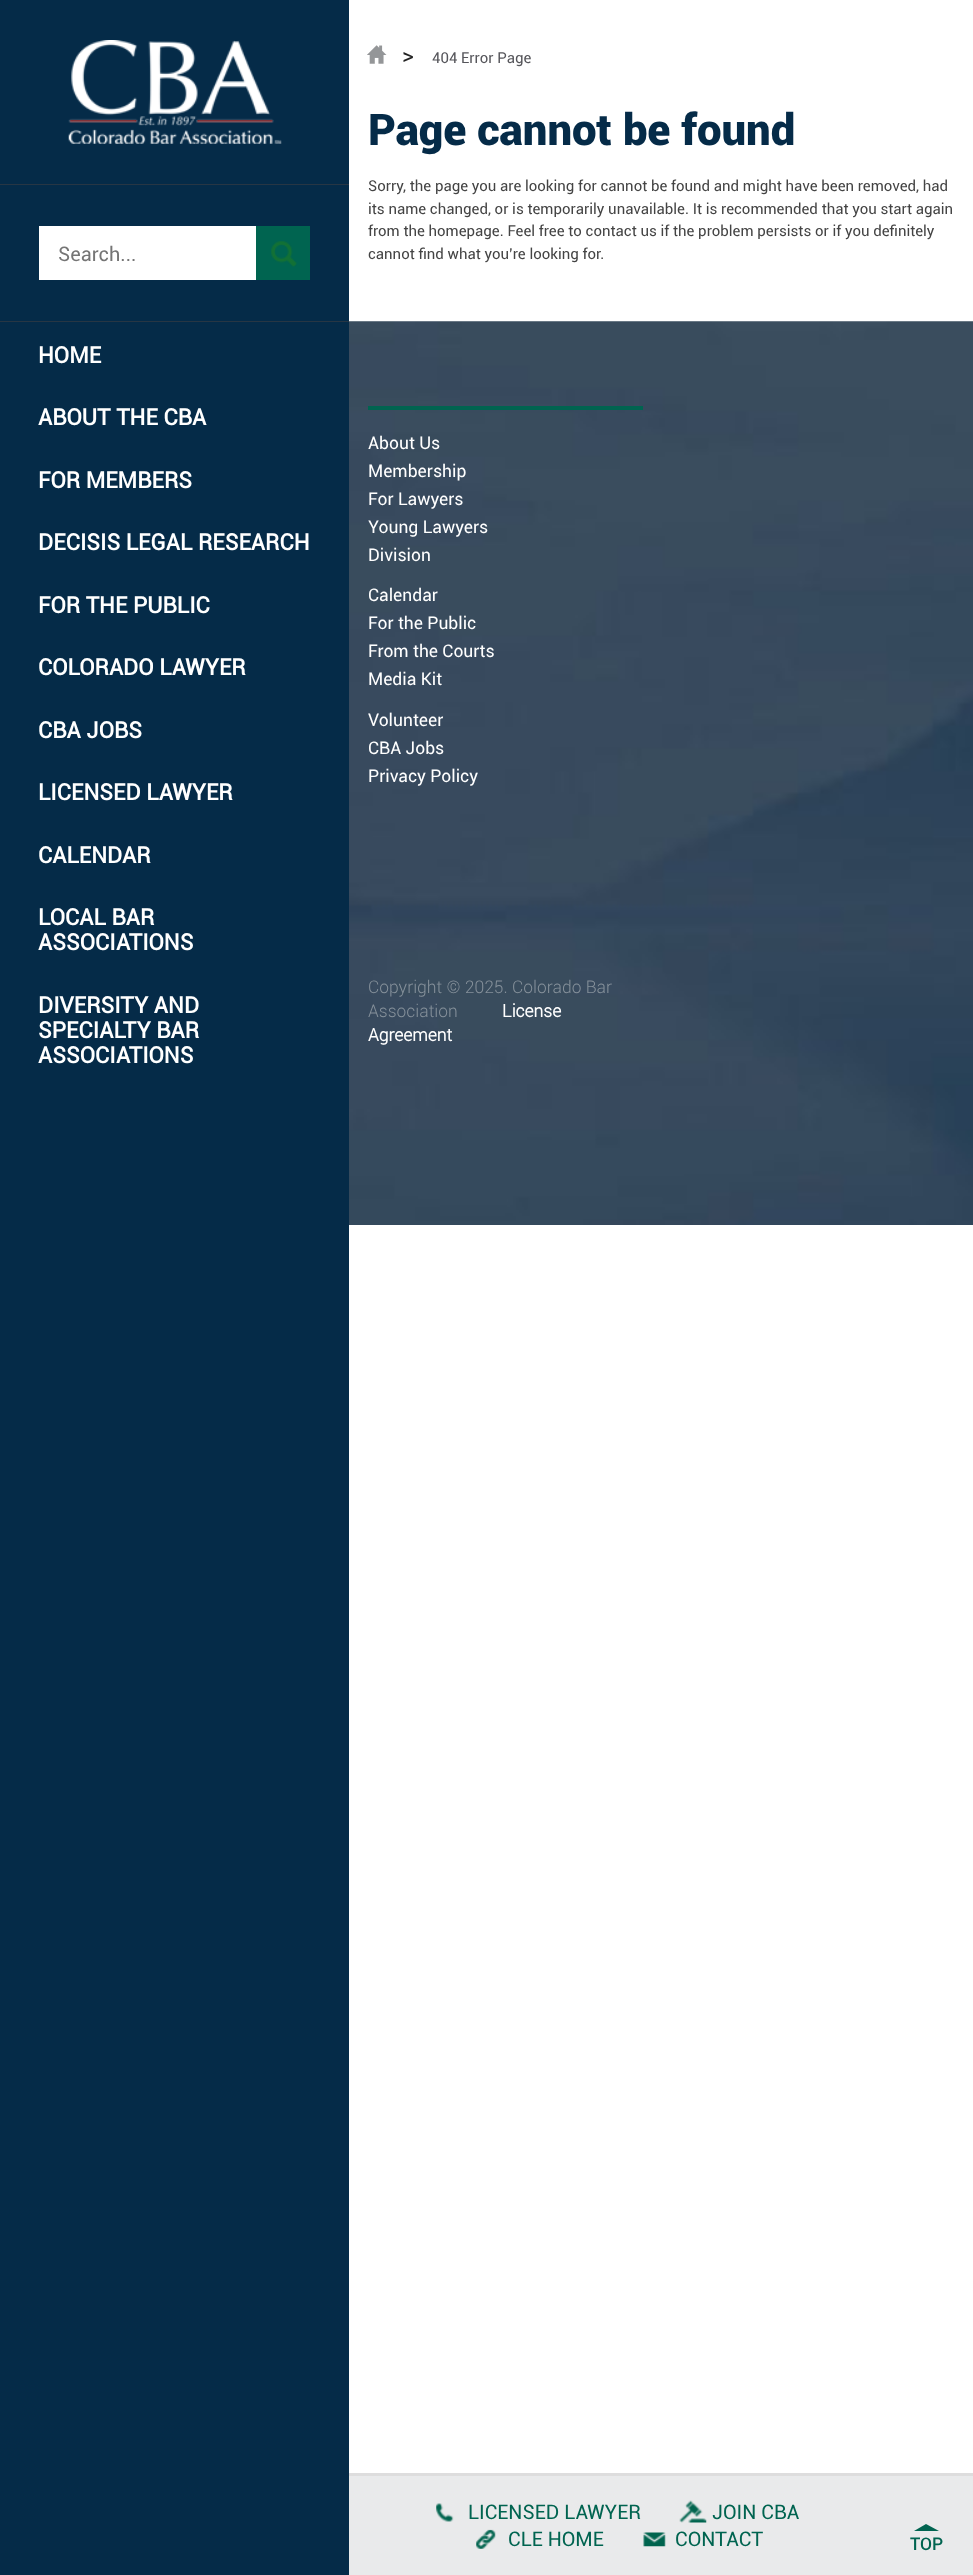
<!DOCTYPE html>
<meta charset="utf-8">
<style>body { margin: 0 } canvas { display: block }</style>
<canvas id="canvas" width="973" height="2575"></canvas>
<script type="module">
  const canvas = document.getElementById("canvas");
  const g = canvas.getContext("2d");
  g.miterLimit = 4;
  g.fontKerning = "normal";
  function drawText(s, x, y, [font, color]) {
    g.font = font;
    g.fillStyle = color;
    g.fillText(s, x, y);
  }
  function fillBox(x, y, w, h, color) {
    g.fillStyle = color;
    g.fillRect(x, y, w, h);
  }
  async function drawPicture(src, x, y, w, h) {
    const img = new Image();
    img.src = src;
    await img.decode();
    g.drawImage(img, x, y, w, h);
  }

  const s1 = ["20px Roboto", "#757575"];
  const s2 = ["bold 22.5px 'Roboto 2'", "#FFFFFF"];
  const s3 = ["22.5px Roboto", "#222222"];
  const s4 = ["15px Roboto", "#56565B"];
  const s5 = ["900 43.75px Roboto", "#052B48"];
  const s6 = ["15px Roboto", "#444444"];
  const s7 = ["17.5px Roboto", "#FFFFFF"];
  const s8 = ["300 17.5px Roboto", "#85909A"];
  const s9 = ["bold 17.5px Roboto", "#FFFFFF"];
  const s10 = ["20px Roboto", "#006450"];
  const s11 = ["500 17.5px Roboto", "#006450"];

  fillBox(0, 0, 973, 2575, "#FFFFFF");
  fillBox(0, 0, 349, 2575, "#052B48");
  await drawPicture("pic1.png", 68, 40, 214, 104);
  fillBox(0, 184, 349, 1, "#273644");
  fillBox(0, 321, 349, 1, "#273644");
  fillBox(39, 226, 217, 54, "#FFFFFF");
  drawText("Search...", 58, 261, s1);
  fillBox(256, 226, 54, 54, "#006450");
  await drawPicture("pic2.png", 271, 241, 26, 26);
  drawText("HOME", 38, 363, s2);
  drawText("ABOUT THE CBA", 38, 425, s2);
  drawText("FOR MEMBERS", 38, 488, s2);
  drawText("DECISIS LEGAL RESEARCH", 38, 550, s2);
  drawText("FOR THE PUBLIC", 38, 613, s2);
  drawText("COLORADO LAWYER", 38, 675, s2);
  drawText("CBA JOBS", 38, 738, s2);
  drawText("LICENSED LAWYER", 38, 800, s2);
  drawText("CALENDAR", 38, 863, s2);
  drawText("LOCAL BAR", 38, 925, s2);
  drawText("ASSOCIATIONS", 38, 950, s2);
  drawText("DIVERSITY AND", 38, 1013, s2);
  drawText("SPECIALTY BAR", 38, 1038, s2);
  drawText("ASSOCIATIONS", 38, 1063, s2);
  await drawPicture("pic3.png", 367, 45, 20, 19);
  drawText(">", 402, 63, s3);
  drawText("404 Error Page", 432, 63, s4);
  drawText("Page cannot be found", 368, 145, s5);
  drawText("Sorry, the page you are looking for cannot be found and might have been removed, had", 368, 191, s6);
  drawText("its name changed, or is temporarily unavailable. It is recommended that you start again", 368, 214, s6);
  drawText("from the homepage. Feel free to contact us if the problem persists or if you definitely", 368, 236, s6);
  drawText("cannot find what you’re looking for.", 368, 259, s6);
  await drawPicture("pic4.png", 349, 321, 624, 904);
  fillBox(368, 406, 275, 4, "#006450");
  drawText("About Us", 368, 449, s7);
  drawText("Membership", 368, 477, s7);
  drawText("For Lawyers", 368, 505, s7);
  drawText("Young Lawyers", 368, 533, s7);
  drawText("Division", 368, 561, s7);
  drawText("Calendar", 368, 601, s7);
  drawText("For the Public", 368, 629, s7);
  drawText("From the Courts", 368, 657, s7);
  drawText("Media Kit", 368, 685, s7);
  drawText("Volunteer", 368, 726, s7);
  drawText("CBA Jobs", 368, 754, s7);
  drawText("Privacy Policy", 368, 782, s7);
  drawText("Copyright © 2025. Colorado Bar", 368, 993, s8);
  drawText("Association", 368, 1017, s8);
  drawText("License", 502, 1017, s9);
  drawText("Agreement", 368, 1041, s9);
  fillBox(349, 2476, 624, 99, "#E9EAEB");
  fillBox(349, 2473, 624, 3, "#DDDDDD");
  await drawPicture("pic5.png", 436, 2503, 18, 19);
  drawText("LICENSED LAWYER", 468, 2519, s10);
  await drawPicture("pic6.png", 679, 2500, 28, 23);
  drawText("JOIN CBA", 712, 2519, s10);
  await drawPicture("pic7.png", 476, 2529, 20, 20);
  drawText("CLE HOME", 508, 2546, s10);
  await drawPicture("pic8.png", 643, 2532, 23, 15);
  drawText("CONTACT", 675, 2546, s10);
  g.beginPath();
  g.moveTo(939, 2531);
  g.lineTo(914, 2531);
  g.lineTo(926, 2524);
  g.closePath();
  g.fill();
  drawText("TOP", 910, 2550, s11);
</script>
